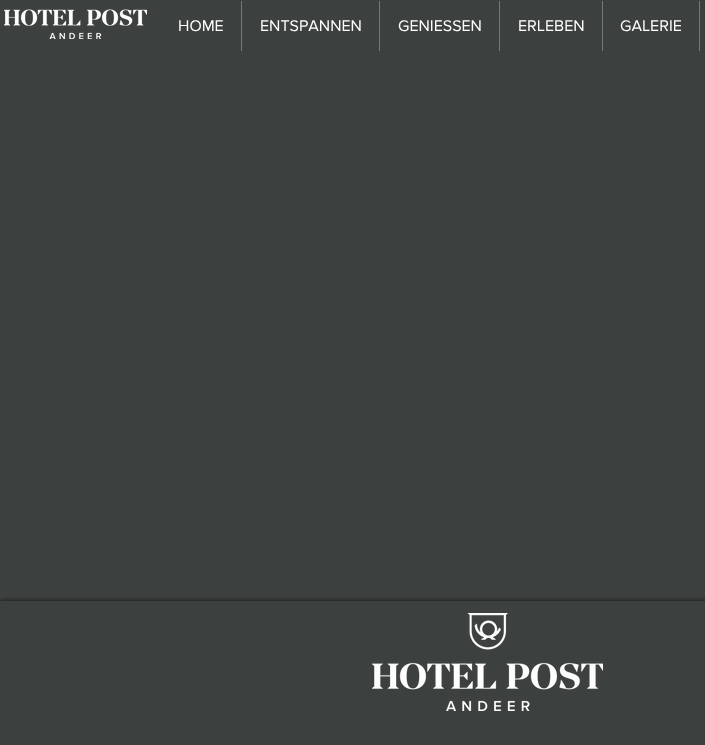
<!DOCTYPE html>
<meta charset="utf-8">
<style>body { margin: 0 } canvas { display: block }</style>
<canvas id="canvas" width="705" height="745"></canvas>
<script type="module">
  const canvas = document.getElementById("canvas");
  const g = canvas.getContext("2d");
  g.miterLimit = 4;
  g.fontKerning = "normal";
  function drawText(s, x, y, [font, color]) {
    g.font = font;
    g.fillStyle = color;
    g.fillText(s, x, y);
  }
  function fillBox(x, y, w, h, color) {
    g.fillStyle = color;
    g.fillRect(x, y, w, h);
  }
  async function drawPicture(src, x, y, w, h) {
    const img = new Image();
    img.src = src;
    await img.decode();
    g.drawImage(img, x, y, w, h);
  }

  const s1 = ["16px 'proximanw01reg'", "#FFFFFF"];

  fillBox(0, 0, 705, 745, "#3C403E");
  await drawPicture("pic1.png", 4, 9, 143, 30);
  drawText("HOME", 178, 31, s1);
  fillBox(241, 1, 1, 50, "#777878");
  drawText("ENTSPANNEN", 260, 31, s1);
  fillBox(379, 1, 1, 50, "#777878");
  drawText("GENIESSEN", 398, 31, s1);
  fillBox(499, 1, 1, 50, "#777878");
  drawText("ERLEBEN", 518, 31, s1);
  fillBox(602, 1, 1, 50, "#777878");
  drawText("GALERIE", 620, 31, s1);
  fillBox(699, 1, 1, 50, "#777878");
  g.save();
  g.beginPath();
  g.rect(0, 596, 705, 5);
  g.clip();
  g.fillStyle = "rgba(0, 0, 0, 0.7)";
  g.filter = "blur(2.5px)";
  g.beginPath();
  g.rect(0, 601, 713, 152);
  g.fill();
  g.filter = "none";
  g.restore();
  await drawPicture("pic2.png", 372, 613, 231, 98);
</script>
